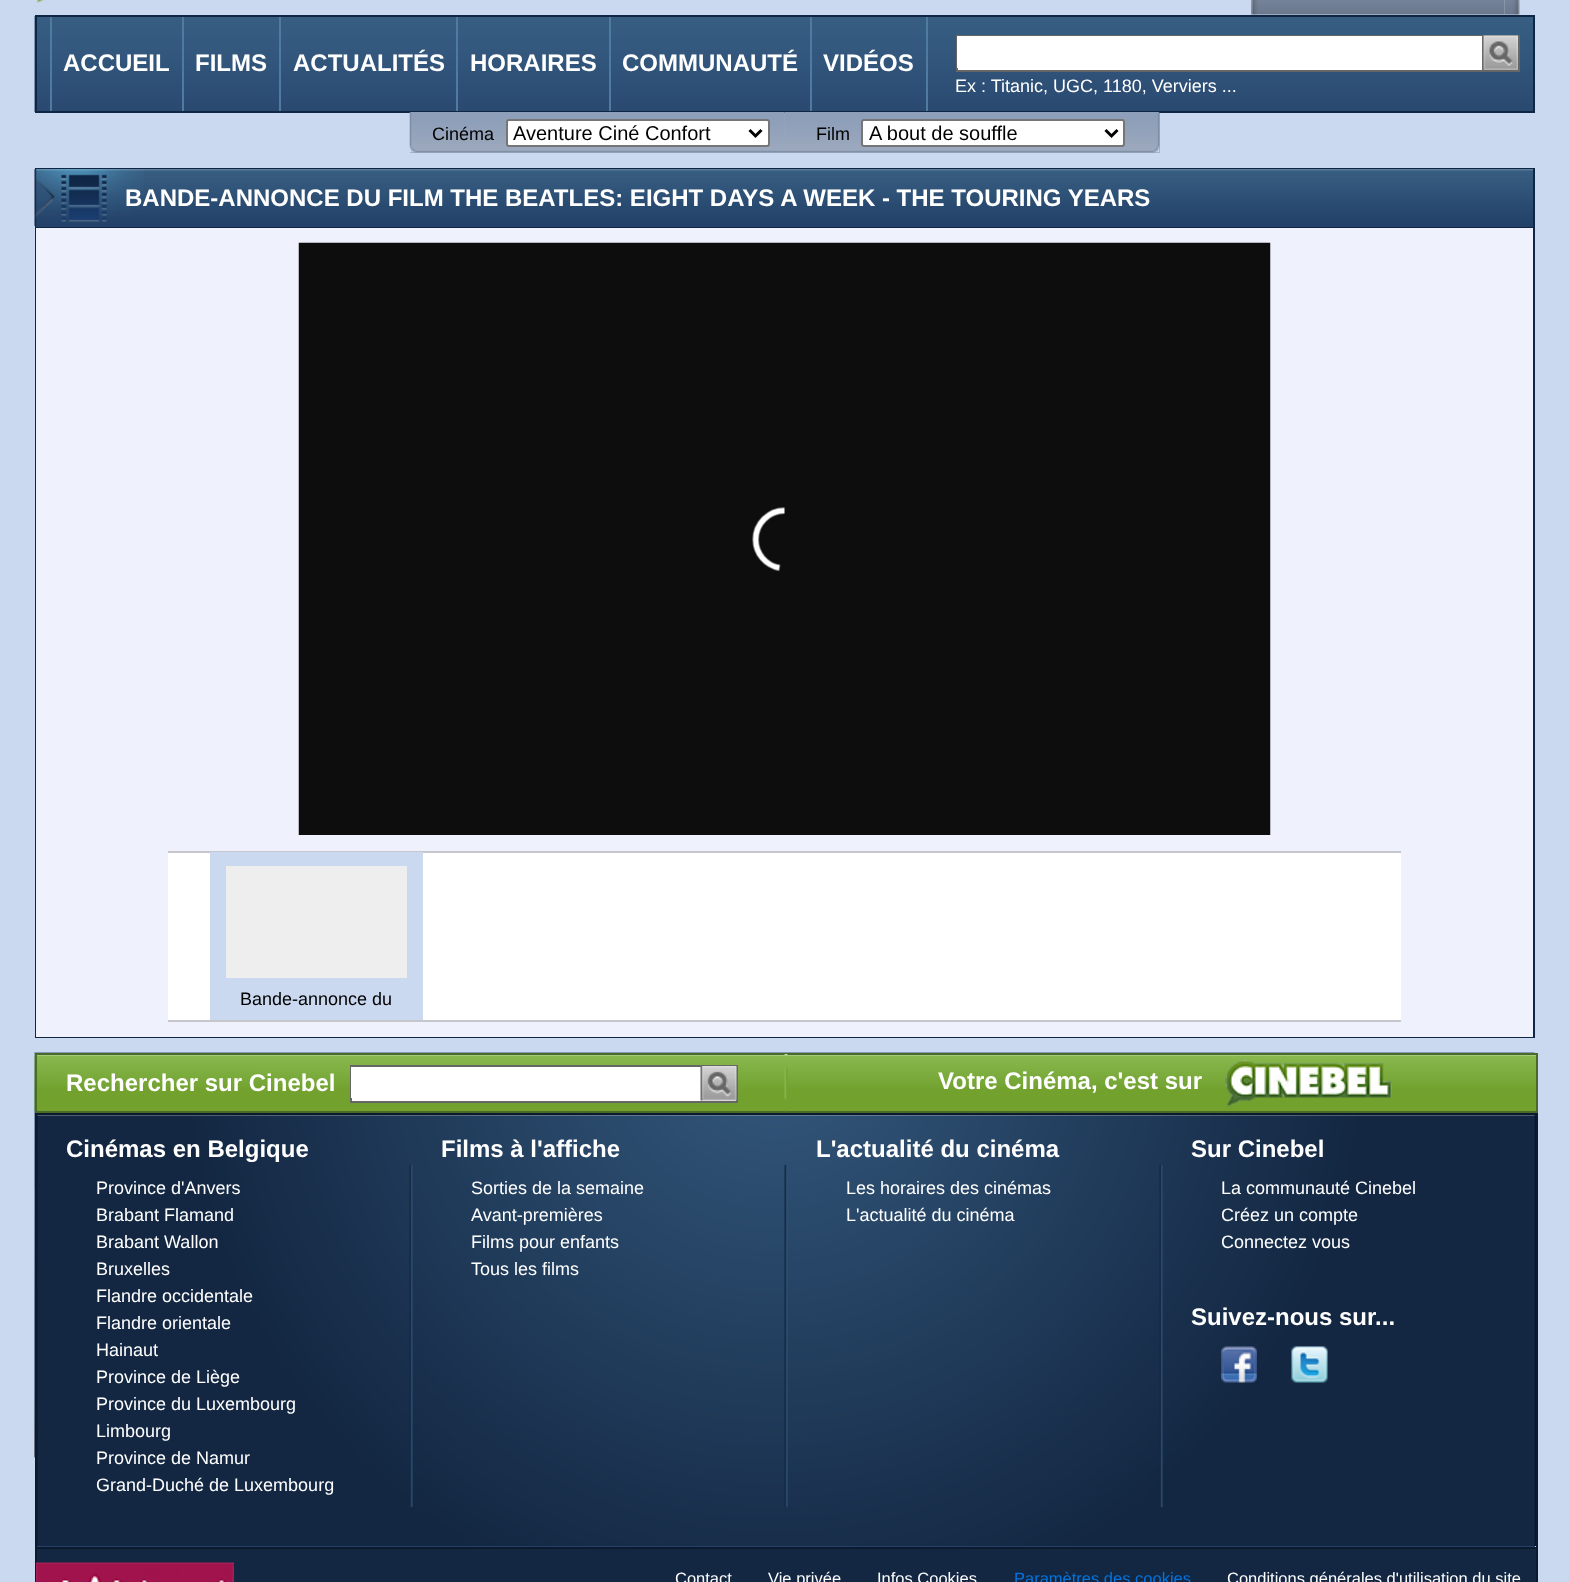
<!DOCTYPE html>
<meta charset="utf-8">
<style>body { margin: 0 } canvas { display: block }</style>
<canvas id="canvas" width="1569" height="1582"></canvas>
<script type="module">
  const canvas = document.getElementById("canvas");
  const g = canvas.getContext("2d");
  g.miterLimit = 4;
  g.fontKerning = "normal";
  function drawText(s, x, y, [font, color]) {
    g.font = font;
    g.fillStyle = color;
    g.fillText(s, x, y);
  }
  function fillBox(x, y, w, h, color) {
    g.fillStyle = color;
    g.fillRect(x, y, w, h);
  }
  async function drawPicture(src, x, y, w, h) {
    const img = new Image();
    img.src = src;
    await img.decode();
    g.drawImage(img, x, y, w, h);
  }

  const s1 = ["bold 24px Liberation Sans", "#FFFFFF"];
  const s2 = ["18px Liberation Sans", "#FFFFFF"];
  const s3 = ["18px Liberation Sans", "#000000"];
  const s4 = ["20px Liberation Sans", "#000000"];
  const s5 = ["16.5px Liberation Sans", "#FFFFFF"];
  const s6 = ["16.5px Liberation Sans", "#0374DD"];

  fillBox(0, 0, 1569, 1582, "#CAD9EF");
  await drawPicture("pic1.png", 36, 0, 8, 3);
  await drawPicture("pic2.png", 1251, 0, 254, 15);
  await drawPicture("pic3.png", 1504, 0, 16, 15);
  await drawPicture("pic4.png", 34, 16, 1499, 96);
  g.strokeStyle = "#102645";
  g.lineWidth = 2;
  g.strokeRect(36, 16, 1498, 96);
  fillBox(182, 17, 2, 94, "#4F7BA0");
  fillBox(50, 17, 2, 94, "#4F7BA0");
  drawText("ACCUEIL", 63, 71, s1);
  fillBox(279, 17, 2, 94, "#4F7BA0");
  drawText("FILMS", 195, 71, s1);
  fillBox(456, 17, 2, 94, "#4F7BA0");
  drawText("ACTUALITÉS", 293, 71, s1);
  fillBox(609, 17, 2, 94, "#4F7BA0");
  drawText("HORAIRES", 470, 71, s1);
  fillBox(810, 17, 2, 94, "#4F7BA0");
  drawText("COMMUNAUTÉ", 622, 71, s1);
  fillBox(926, 17, 2, 94, "#4F7BA0");
  drawText("VIDÉOS", 823, 71, s1);
  fillBox(958, 68, 524, 2, "#FFFFFF");
  g.strokeStyle = "#666666";
  g.strokeRect(957, 36, 562, 35);
  fillBox(957, 36, 525, 32, "#FFFFFF");
  await drawPicture("pic5.png", 1482, 35, 36, 35);
  drawText("Ex : Titanic, UGC, 1180, Verviers ...", 955, 92, s2);
  fillBox(410, 113, 750, 40, "#9BA8BD");
  await drawPicture("pic6.png", 409, 112, 376, 41);
  drawText("Cinéma", 432, 140, s3);
  g.fillStyle = "#FFFFFF";
  g.beginPath();
  g.roundRect(507, 120, 262, 26, 2);
  g.fill();
  g.strokeStyle = "#767676";
  g.stroke();
  g.beginPath();
  g.moveTo(749.5, 130);
  g.lineTo(755.5, 136);
  g.lineTo(761.5, 130);
  g.strokeStyle = "#000000";
  g.lineWidth = 3;
  g.stroke();
  drawText("Aventure Ciné Confort", 513, 140, s4);
  await drawPicture("pic7.png", 784, 112, 376, 41);
  drawText("Film", 816, 140, s3);
  g.fillStyle = "#FFFFFF";
  g.beginPath();
  g.roundRect(862, 120, 262, 26, 2);
  g.fill();
  g.strokeStyle = "#767676";
  g.lineWidth = 2;
  g.stroke();
  g.beginPath();
  g.moveTo(1105.5, 130);
  g.lineTo(1111.5, 136);
  g.lineTo(1117.5, 130);
  g.strokeStyle = "#000000";
  g.lineWidth = 3;
  g.stroke();
  drawText("A bout de souffle", 869, 140, s4);
  g.strokeStyle = "#102645";
  g.lineWidth = 2;
  g.strokeRect(36, 169, 1498, 868);
  await drawPicture("pic8.png", 36, 169, 1497, 58);
  fillBox(36, 227, 1497, 1, "#102645");
  await drawPicture("pic9.png", 34, 169, 110, 57);
  drawText("BANDE-ANNONCE DU FILM THE BEATLES: EIGHT DAYS A WEEK - THE TOURING YEARS", 125, 206, s1);
  fillBox(36, 228, 1497, 809, "#EFF2FD");
  await drawPicture("pic10.png", 298, 242, 973, 593);
  fillBox(168, 853, 1233, 167, "#FFFFFF");
  fillBox(168, 851, 1233, 2, "#C5C7CC");
  fillBox(168, 1020, 1233, 2, "#C5C7CC");
  fillBox(210, 852, 213, 168, "#CAD9EF");
  fillBox(226, 866, 181, 112, "#EEEEEE");
  drawText("Bande-annonce du", 240, 1005, s3);
  fillBox(37, 1546, 1498, 1, "#244269");
  await drawPicture("pic11.png", 34, 1052, 1501, 406);
  await drawPicture("pic12.png", 34, 1054, 1502, 57);
  g.strokeStyle = "#4A6A28";
  g.strokeRect(36, 1054, 1501, 58);
  drawText("Rechercher sur Cinebel", 66, 1091, s1);
  fillBox(352, 1098, 384, 3, "#FFFFFF");
  g.strokeStyle = "#666666";
  g.strokeRect(351, 1066, 386, 36);
  fillBox(351, 1067, 350, 31, "#FFFFFF");
  await drawPicture("pic13.png", 700, 1066, 37, 35);
  await drawPicture("pic14.png", 784, 1054, 4, 58);
  drawText("Votre Cinéma, c'est sur", 938, 1089, s1);
  await drawPicture("pic15.png", 1225, 1059, 167, 48);
  await drawPicture("pic16.png", 37, 1115, 1499, 431);
  fillBox(35, 1113, 1503, 2, "#0B1A2C");
  fillBox(1536, 1113, 2, 434, "#0B1A2C");
  fillBox(35, 1113, 2, 434, "#0B1A2C");
  drawText("Cinémas en Belgique", 66, 1157, s1);
  drawText("Province d'Anvers", 96, 1194, s2);
  drawText("Brabant Flamand", 96, 1221, s2);
  drawText("Brabant Wallon", 96, 1248, s2);
  drawText("Bruxelles", 96, 1275, s2);
  drawText("Flandre occidentale", 96, 1302, s2);
  drawText("Flandre orientale", 96, 1329, s2);
  drawText("Hainaut", 96, 1356, s2);
  drawText("Province de Liège", 96, 1383, s2);
  drawText("Province du Luxembourg", 96, 1410, s2);
  drawText("Limbourg", 96, 1437, s2);
  drawText("Province de Namur", 96, 1464, s2);
  drawText("Grand-Duché de Luxembourg", 96, 1491, s2);
  drawText("Films à l'affiche", 441, 1157, s1);
  drawText("Sorties de la semaine", 471, 1194, s2);
  drawText("Avant-premières", 471, 1221, s2);
  drawText("Films pour enfants", 471, 1248, s2);
  drawText("Tous les films", 471, 1275, s2);
  drawText("L'actualité du cinéma", 816, 1157, s1);
  drawText("Les horaires des cinémas", 846, 1194, s2);
  drawText("L'actualité du cinéma", 846, 1221, s2);
  drawText("Sur Cinebel", 1191, 1157, s1);
  drawText("La communauté Cinebel", 1221, 1194, s2);
  drawText("Créez un compte", 1221, 1221, s2);
  drawText("Connectez vous", 1221, 1248, s2);
  drawText("Suivez-nous sur...", 1191, 1325, s1);
  await drawPicture("pic17.png", 1221, 1346, 36, 37);
  await drawPicture("pic18.png", 1291, 1346, 37, 37);
  g.fillStyle = "#132743";
  g.beginPath();
  g.rect(36, 1548, 1501, 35);
  g.fill();
  g.strokeStyle = "#0B1A2C";
  g.stroke();
  await drawPicture("pic19.png", 36, 1562, 198, 20);
  drawText("Contact", 675, 1584, s5);
  drawText("Vie privée", 768, 1584, s5);
  drawText("Infos Cookies", 877, 1584, s5);
  drawText("Paramètres des cookies", 1014, 1584, s6);
  drawText("Conditions générales d'utilisation du site", 1227, 1584, s5);
</script>
